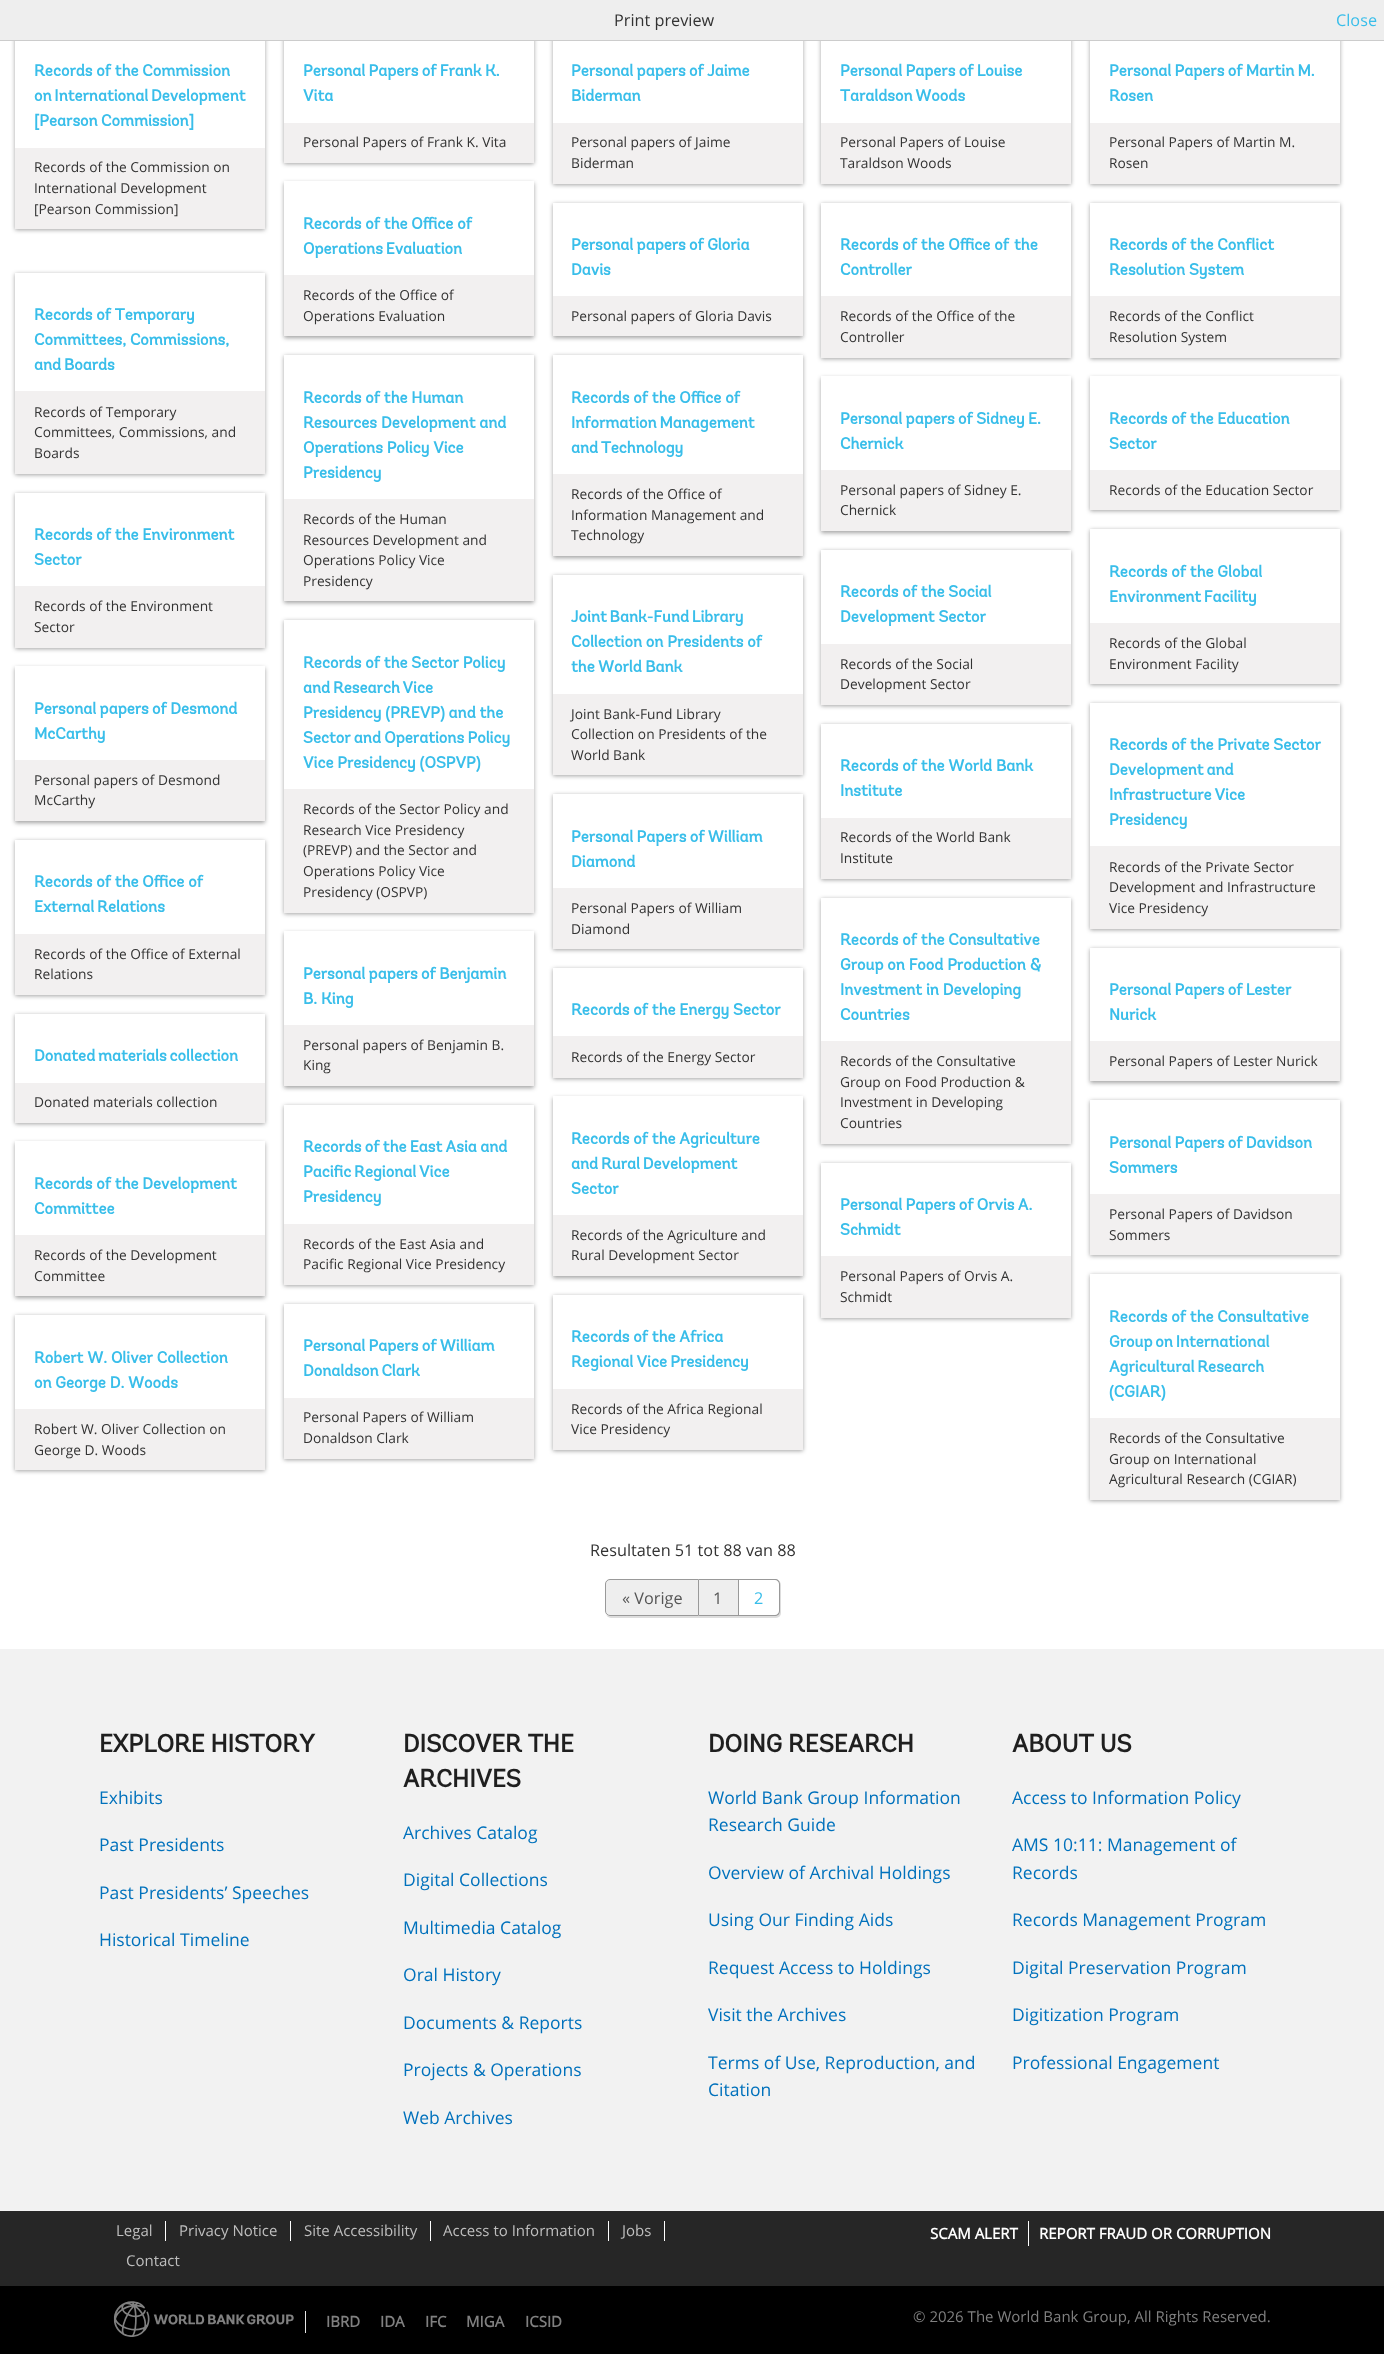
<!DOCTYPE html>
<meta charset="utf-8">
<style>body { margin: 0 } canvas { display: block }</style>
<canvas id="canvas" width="1384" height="2354"></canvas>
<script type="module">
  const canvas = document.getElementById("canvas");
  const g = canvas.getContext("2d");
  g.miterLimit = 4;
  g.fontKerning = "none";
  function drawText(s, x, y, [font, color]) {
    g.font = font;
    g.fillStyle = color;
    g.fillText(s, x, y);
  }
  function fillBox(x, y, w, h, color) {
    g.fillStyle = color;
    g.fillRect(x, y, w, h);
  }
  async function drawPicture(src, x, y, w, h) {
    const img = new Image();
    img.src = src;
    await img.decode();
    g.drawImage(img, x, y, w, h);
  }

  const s1 = ["16.25px Open Sans", "#333333"];
  const s2 = ["16.25px Open Sans", "#39BEEA"];
  const s3 = ["bold 16.25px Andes", "#39BEEA"];
  const s4 = ["13.75px Open Sans", "#333333"];
  const s5 = ["16.25px Open Sans", "#555555"];
  const s6 = ["bold 25px Andes", "#1F1F1F"];
  const s7 = ["17.5px Open Sans", "#0071BC"];
  const s8 = ["15px Open Sans", "#BEBEBE"];
  const s9 = ["bold 15px Open Sans", "#FFFFFF"];
  const s10 = ["bold 15px Open Sans", "#808080"];
  const s11 = ["15px Open Sans", "#808080"];

  fillBox(0, 0, 1384, 2354, "#FFFFFF");
  g.fillStyle = "rgba(25, 25, 25, 0.4)";
  g.filter = "blur(2px)";
  g.beginPath();
  g.rect(15, 30, 250, 200);
  g.fill();
  g.filter = "none";
  g.filter = "blur(2px)";
  g.beginPath();
  g.rect(284, 30, 250, 134);
  g.fill();
  g.filter = "none";
  g.filter = "blur(2px)";
  g.beginPath();
  g.rect(553, 30, 250, 155);
  g.fill();
  g.filter = "none";
  g.filter = "blur(2px)";
  g.beginPath();
  g.rect(821, 30, 250, 155);
  g.fill();
  g.filter = "none";
  g.filter = "blur(2px)";
  g.beginPath();
  g.rect(1090, 30, 250, 155);
  g.fill();
  g.filter = "none";
  fillBox(0, 0, 1384, 40, "#EEEEEE");
  fillBox(0, 40, 1384, 1, "#CCCCCC");
  drawText("Print preview", 614, 26, s1);
  drawText("Close", 1336, 26, s2);
  fillBox(15, 41, 250, 107, "#FFFFFF");
  drawText("Records of the Commission", 34, 76, s3);
  g.wordSpacing = "-1px";
  drawText("on International Development", 34, 101, s3);
  g.wordSpacing = "-0.5px";
  drawText("[Pearson Commission]", 34, 126, s3);
  fillBox(15, 148, 250, 81, "#F2F0F0");
  g.wordSpacing = "0px";
  drawText("Records of the Commission on", 34, 172, s4);
  drawText("International Development", 34, 193, s4);
  drawText("[Pearson Commission]", 34, 214, s4);
  fillBox(284, 41, 250, 82, "#FFFFFF");
  g.wordSpacing = "-0.5px";
  drawText("Personal Papers of Frank K.", 303, 76, s3);
  g.wordSpacing = "0px";
  drawText("Vita", 303, 101, s3);
  fillBox(284, 123, 250, 40, "#F2F0F0");
  drawText("Personal Papers of Frank K. Vita", 303, 147, s4);
  fillBox(553, 41, 250, 82, "#FFFFFF");
  g.wordSpacing = "-0.5px";
  drawText("Personal papers of Jaime", 571, 76, s3);
  g.wordSpacing = "0px";
  drawText("Biderman", 571, 101, s3);
  fillBox(553, 123, 250, 61, "#F2F0F0");
  drawText("Personal papers of Jaime", 571, 147, s4);
  drawText("Biderman", 571, 168, s4);
  fillBox(821, 41, 250, 82, "#FFFFFF");
  g.wordSpacing = "-0.5px";
  drawText("Personal Papers of Louise", 840, 76, s3);
  g.wordSpacing = "-1px";
  drawText("Taraldson Woods", 840, 101, s3);
  fillBox(821, 123, 250, 61, "#F2F0F0");
  g.wordSpacing = "0px";
  drawText("Personal Papers of Louise", 840, 147, s4);
  drawText("Taraldson Woods", 840, 168, s4);
  fillBox(1090, 41, 250, 82, "#FFFFFF");
  g.wordSpacing = "-0.5px";
  drawText("Personal Papers of Martin M.", 1109, 76, s3);
  g.wordSpacing = "0px";
  drawText("Rosen", 1109, 101, s3);
  fillBox(1090, 123, 250, 61, "#F2F0F0");
  drawText("Personal Papers of Martin M.", 1109, 147, s4);
  drawText("Rosen", 1109, 168, s4);
  g.fillStyle = "rgba(25, 25, 25, 0.4)";
  g.filter = "blur(2px)";
  g.beginPath();
  g.rect(284, 183, 250, 155);
  g.fill();
  g.filter = "none";
  fillBox(284, 181, 250, 94, "#FFFFFF");
  drawText("Records of the Office of", 303, 229, s3);
  g.wordSpacing = "-1px";
  drawText("Operations Evaluation", 303, 254, s3);
  fillBox(284, 275, 250, 61, "#F2F0F0");
  g.wordSpacing = "0px";
  drawText("Records of the Office of", 303, 300, s4);
  drawText("Operations Evaluation", 303, 321, s4);
  g.fillStyle = "rgba(25, 25, 25, 0.4)";
  g.filter = "blur(2px)";
  g.beginPath();
  g.rect(553, 204, 250, 134);
  g.fill();
  g.filter = "none";
  fillBox(553, 203, 250, 93, "#FFFFFF");
  g.wordSpacing = "-0.5px";
  drawText("Personal papers of Gloria", 571, 250, s3);
  g.wordSpacing = "0px";
  drawText("Davis", 571, 275, s3);
  fillBox(553, 296, 250, 40, "#F2F0F0");
  drawText("Personal papers of Gloria Davis", 571, 321, s4);
  g.fillStyle = "rgba(25, 25, 25, 0.4)";
  g.filter = "blur(2px)";
  g.beginPath();
  g.rect(821, 204, 250, 155);
  g.fill();
  g.filter = "none";
  fillBox(821, 203, 250, 93, "#FFFFFF");
  drawText("Records of the Office of", 840, 250, s3);
  drawText("the", 1014, 250, s3);
  drawText("Controller", 840, 275, s3);
  fillBox(821, 296, 250, 62, "#F2F0F0");
  drawText("Records of the Office of the", 840, 321, s4);
  drawText("Controller", 840, 342, s4);
  g.fillStyle = "rgba(25, 25, 25, 0.4)";
  g.filter = "blur(2px)";
  g.beginPath();
  g.rect(1090, 204, 250, 155);
  g.fill();
  g.filter = "none";
  fillBox(1090, 203, 250, 93, "#FFFFFF");
  drawText("Records of the Conflict", 1109, 250, s3);
  drawText("Resolution System", 1109, 275, s3);
  fillBox(1090, 296, 250, 62, "#F2F0F0");
  drawText("Records of the Conflict", 1109, 321, s4);
  drawText("Resolution System", 1109, 342, s4);
  g.fillStyle = "rgba(25, 25, 25, 0.4)";
  g.filter = "blur(2px)";
  g.beginPath();
  g.rect(15, 274, 250, 201);
  g.fill();
  g.filter = "none";
  fillBox(15, 273, 250, 118, "#FFFFFF");
  drawText("Records of Temporary", 34, 320, s3);
  drawText("Committees, Commissions,", 34, 345, s3);
  g.wordSpacing = "-1px";
  drawText("and Boards", 34, 370, s3);
  fillBox(15, 391, 250, 83, "#F2F0F0");
  g.wordSpacing = "0px";
  drawText("Records of Temporary", 34, 417, s4);
  drawText("Committees, Commissions, and", 34, 437, s4);
  drawText("Boards", 34, 458, s4);
  g.fillStyle = "rgba(25, 25, 25, 0.4)";
  g.filter = "blur(2px)";
  g.beginPath();
  g.rect(284, 356, 250, 247);
  g.fill();
  g.filter = "none";
  fillBox(284, 355, 250, 144, "#FFFFFF");
  drawText("Records of the Human", 303, 403, s3);
  drawText("Resources Development and", 303, 428, s3);
  drawText("Operations Policy Vice", 303, 453, s3);
  drawText("Presidency", 303, 478, s3);
  fillBox(284, 499, 250, 102, "#F2F0F0");
  drawText("Records of the Human", 303, 524, s4);
  drawText("Resources Development and", 303, 545, s4);
  drawText("Operations Policy Vice", 303, 565, s4);
  drawText("Presidency", 303, 586, s4);
  g.fillStyle = "rgba(25, 25, 25, 0.4)";
  g.filter = "blur(2px)";
  g.beginPath();
  g.rect(553, 356, 250, 202);
  g.fill();
  g.filter = "none";
  fillBox(553, 355, 250, 119, "#FFFFFF");
  drawText("Records of the Office of", 571, 403, s3);
  g.wordSpacing = "-1px";
  drawText("Information Management", 571, 428, s3);
  drawText("and Technology", 571, 453, s3);
  fillBox(553, 474, 250, 82, "#F2F0F0");
  g.wordSpacing = "0px";
  drawText("Records of the Office of", 571, 499, s4);
  drawText("Information Management and", 571, 520, s4);
  drawText("Technology", 571, 540, s4);
  g.fillStyle = "rgba(25, 25, 25, 0.4)";
  g.filter = "blur(2px)";
  g.beginPath();
  g.rect(821, 378, 250, 155);
  g.fill();
  g.filter = "none";
  fillBox(821, 376, 250, 94, "#FFFFFF");
  g.wordSpacing = "-0.5px";
  drawText("Personal papers of Sidney E.", 840, 424, s3);
  g.wordSpacing = "0px";
  drawText("Chernick", 840, 449, s3);
  fillBox(821, 470, 250, 61, "#F2F0F0");
  drawText("Personal papers of Sidney E.", 840, 495, s4);
  drawText("Chernick", 840, 515, s4);
  g.fillStyle = "rgba(25, 25, 25, 0.4)";
  g.filter = "blur(2px)";
  g.beginPath();
  g.rect(1090, 378, 250, 133);
  g.fill();
  g.filter = "none";
  fillBox(1090, 376, 250, 94, "#FFFFFF");
  drawText("Records of the Education", 1109, 424, s3);
  drawText("Sector", 1109, 449, s3);
  fillBox(1090, 470, 250, 40, "#F2F0F0");
  drawText("Records of the Education Sector", 1109, 495, s4);
  g.fillStyle = "rgba(25, 25, 25, 0.4)";
  g.filter = "blur(2px)";
  g.beginPath();
  g.rect(15, 494, 250, 155);
  g.fill();
  g.filter = "none";
  fillBox(15, 493, 250, 93, "#FFFFFF");
  drawText("Records of the Environment", 34, 540, s3);
  drawText("Sector", 34, 565, s3);
  fillBox(15, 586, 250, 62, "#F2F0F0");
  drawText("Records of the Environment", 34, 611, s4);
  drawText("Sector", 34, 632, s4);
  g.fillStyle = "rgba(25, 25, 25, 0.4)";
  g.filter = "blur(2px)";
  g.beginPath();
  g.rect(284, 621, 250, 293);
  g.fill();
  g.filter = "none";
  fillBox(284, 620, 250, 169, "#FFFFFF");
  drawText("Records of the Sector Policy", 303, 668, s3);
  g.wordSpacing = "-1px";
  drawText("and Research Vice", 303, 693, s3);
  g.wordSpacing = "0px";
  drawText("Presidency (PREVP) and the", 303, 718, s3);
  g.wordSpacing = "-0.5px";
  drawText("Sector and Operations Policy", 303, 743, s3);
  g.wordSpacing = "0px";
  drawText("Vice Presidency (OSPVP)", 303, 768, s3);
  fillBox(284, 789, 250, 124, "#F2F0F0");
  drawText("Records of the Sector Policy and", 303, 814, s4);
  drawText("Research Vice Presidency", 303, 835, s4);
  drawText("(PREVP) and the Sector and", 303, 855, s4);
  drawText("Operations Policy Vice", 303, 876, s4);
  drawText("Presidency (OSPVP)", 303, 897, s4);
  g.fillStyle = "rgba(25, 25, 25, 0.4)";
  g.filter = "blur(2px)";
  g.beginPath();
  g.rect(553, 576, 250, 200);
  g.fill();
  g.filter = "none";
  fillBox(553, 575, 250, 119, "#FFFFFF");
  g.wordSpacing = "-1px";
  drawText("Joint Bank-Fund Library", 571, 622, s3);
  g.wordSpacing = "0px";
  drawText("Collection on Presidents of", 571, 647, s3);
  g.wordSpacing = "-0.5px";
  drawText("the World Bank", 571, 672, s3);
  fillBox(553, 694, 250, 81, "#F2F0F0");
  g.wordSpacing = "0px";
  drawText("Joint Bank-Fund Library", 571, 719, s4);
  drawText("Collection on Presidents of the", 571, 739, s4);
  drawText("World Bank", 571, 760, s4);
  g.fillStyle = "rgba(25, 25, 25, 0.4)";
  g.filter = "blur(2px)";
  g.beginPath();
  g.rect(821, 551, 250, 155);
  g.fill();
  g.filter = "none";
  fillBox(821, 550, 250, 94, "#FFFFFF");
  drawText("Records of the Social", 840, 597, s3);
  drawText("Development Sector", 840, 622, s3);
  fillBox(821, 644, 250, 61, "#F2F0F0");
  drawText("Records of the Social", 840, 669, s4);
  drawText("Development Sector", 840, 689, s4);
  g.fillStyle = "rgba(25, 25, 25, 0.4)";
  g.filter = "blur(2px)";
  g.beginPath();
  g.rect(1090, 530, 250, 155);
  g.fill();
  g.filter = "none";
  fillBox(1090, 529, 250, 94, "#FFFFFF");
  drawText("Records of the Global", 1109, 577, s3);
  g.wordSpacing = "-1px";
  drawText("Environment Facility", 1109, 602, s3);
  fillBox(1090, 623, 250, 61, "#F2F0F0");
  g.wordSpacing = "0px";
  drawText("Records of the Global", 1109, 648, s4);
  drawText("Environment Facility", 1109, 669, s4);
  g.fillStyle = "rgba(25, 25, 25, 0.4)";
  g.filter = "blur(2px)";
  g.beginPath();
  g.rect(15, 668, 250, 155);
  g.fill();
  g.filter = "none";
  fillBox(15, 666, 250, 94, "#FFFFFF");
  g.wordSpacing = "-0.5px";
  drawText("Personal papers of Desmond", 34, 714, s3);
  g.wordSpacing = "0px";
  drawText("McCarthy", 34, 739, s3);
  fillBox(15, 760, 250, 61, "#F2F0F0");
  drawText("Personal papers of Desmond", 34, 785, s4);
  drawText("McCarthy", 34, 805, s4);
  g.fillStyle = "rgba(25, 25, 25, 0.4)";
  g.filter = "blur(2px)";
  g.beginPath();
  g.rect(821, 725, 250, 155);
  g.fill();
  g.filter = "none";
  fillBox(821, 724, 250, 94, "#FFFFFF");
  drawText("Records of the World Bank", 840, 771, s3);
  drawText("Institute", 840, 796, s3);
  fillBox(821, 818, 250, 61, "#F2F0F0");
  drawText("Records of the World Bank", 840, 842, s4);
  drawText("Institute", 840, 863, s4);
  g.fillStyle = "rgba(25, 25, 25, 0.4)";
  g.filter = "blur(2px)";
  g.beginPath();
  g.rect(1090, 704, 250, 226);
  g.fill();
  g.filter = "none";
  fillBox(1090, 703, 250, 143, "#FFFFFF");
  drawText("Records of the Private Sector", 1109, 750, s3);
  g.wordSpacing = "-1px";
  drawText("Development and", 1109, 775, s3);
  drawText("Infrastructure Vice", 1109, 800, s3);
  g.wordSpacing = "0px";
  drawText("Presidency", 1109, 825, s3);
  fillBox(1090, 846, 250, 83, "#F2F0F0");
  drawText("Records of the Private Sector", 1109, 872, s4);
  drawText("Development and Infrastructure", 1109, 892, s4);
  drawText("Vice Presidency", 1109, 913, s4);
  g.save();
  g.beginPath();
  g.moveTo(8, 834);
  g.lineTo(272, 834);
  g.lineTo(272, 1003);
  g.lineTo(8, 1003);
  g.closePath();
  g.moveTo(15, 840);
  g.lineTo(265, 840);
  g.lineTo(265, 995);
  g.lineTo(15, 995);
  g.closePath();
  g.clip("evenodd");
  g.fillStyle = "rgba(25, 25, 25, 0.4)";
  g.filter = "blur(2px)";
  g.beginPath();
  g.rect(15, 841, 250, 155);
  g.fill();
  g.filter = "none";
  g.restore();
  drawText("Records of the Office of", 34, 887, s3);
  g.wordSpacing = "-1px";
  drawText("External Relations", 34, 912, s3);
  fillBox(15, 934, 250, 61, "#F2F0F0");
  g.wordSpacing = "0px";
  drawText("Records of the Office of External", 34, 959, s4);
  drawText("Relations", 34, 979, s4);
  g.fillStyle = "rgba(25, 25, 25, 0.4)";
  g.filter = "blur(2px)";
  g.beginPath();
  g.rect(284, 933, 250, 155);
  g.fill();
  g.filter = "none";
  fillBox(284, 931, 250, 94, "#FFFFFF");
  g.wordSpacing = "-0.5px";
  drawText("Personal papers of Benjamin", 303, 979, s3);
  g.wordSpacing = "0px";
  drawText("B. King", 303, 1004, s3);
  fillBox(284, 1025, 250, 61, "#F2F0F0");
  drawText("Personal papers of Benjamin B.", 303, 1050, s4);
  drawText("King", 303, 1070, s4);
  g.fillStyle = "rgba(25, 25, 25, 0.4)";
  g.filter = "blur(2px)";
  g.beginPath();
  g.rect(553, 795, 250, 155);
  g.fill();
  g.filter = "none";
  fillBox(553, 794, 250, 94, "#FFFFFF");
  g.wordSpacing = "-0.5px";
  drawText("Personal Papers of William", 571, 842, s3);
  g.wordSpacing = "0px";
  drawText("Diamond", 571, 867, s3);
  fillBox(553, 888, 250, 61, "#F2F0F0");
  drawText("Personal Papers of William", 571, 913, s4);
  drawText("Diamond", 571, 934, s4);
  g.fillStyle = "rgba(25, 25, 25, 0.4)";
  g.filter = "blur(2px)";
  g.beginPath();
  g.rect(821, 899, 250, 246);
  g.fill();
  g.filter = "none";
  fillBox(821, 898, 250, 143, "#FFFFFF");
  drawText("Records of the Consultative", 840, 945, s3);
  drawText("Group on Food Production &", 840, 970, s3);
  drawText("Investment in Developing", 840, 995, s3);
  drawText("Countries", 840, 1020, s3);
  fillBox(821, 1041, 250, 103, "#F2F0F0");
  drawText("Records of the Consultative", 840, 1066, s4);
  drawText("Group on Food Production &", 840, 1087, s4);
  drawText("Investment in Developing", 840, 1107, s4);
  drawText("Countries", 840, 1128, s4);
  g.save();
  g.beginPath();
  g.moveTo(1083, 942);
  g.lineTo(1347, 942);
  g.lineTo(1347, 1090);
  g.lineTo(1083, 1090);
  g.closePath();
  g.moveTo(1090, 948);
  g.lineTo(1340, 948);
  g.lineTo(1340, 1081);
  g.lineTo(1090, 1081);
  g.closePath();
  g.clip("evenodd");
  g.fillStyle = "rgba(25, 25, 25, 0.4)";
  g.filter = "blur(2px)";
  g.beginPath();
  g.rect(1090, 949, 250, 134);
  g.fill();
  g.filter = "none";
  g.restore();
  g.wordSpacing = "-0.5px";
  drawText("Personal Papers of Lester", 1109, 995, s3);
  g.wordSpacing = "0px";
  drawText("Nurick", 1109, 1020, s3);
  fillBox(1090, 1041, 250, 40, "#F2F0F0");
  drawText("Personal Papers of Lester Nurick", 1109, 1066, s4);
  g.fillStyle = "rgba(25, 25, 25, 0.4)";
  g.filter = "blur(2px)";
  g.beginPath();
  g.rect(553, 969, 250, 110);
  g.fill();
  g.filter = "none";
  fillBox(553, 968, 250, 68, "#FFFFFF");
  drawText("Records of the Energy Sector", 571, 1015, s3);
  fillBox(553, 1036, 250, 42, "#F2F0F0");
  drawText("Records of the Energy Sector", 571, 1062, s4);
  g.fillStyle = "rgba(25, 25, 25, 0.4)";
  g.filter = "blur(2px)";
  g.beginPath();
  g.rect(15, 1015, 250, 109);
  g.fill();
  g.filter = "none";
  fillBox(15, 1014, 250, 69, "#FFFFFF");
  g.wordSpacing = "-1px";
  drawText("Donated materials collection", 34, 1061, s3);
  fillBox(15, 1083, 250, 40, "#F2F0F0");
  g.wordSpacing = "0px";
  drawText("Donated materials collection", 34, 1107, s4);
  g.fillStyle = "rgba(25, 25, 25, 0.4)";
  g.filter = "blur(2px)";
  g.beginPath();
  g.rect(15, 1143, 250, 155);
  g.fill();
  g.filter = "none";
  fillBox(15, 1141, 250, 94, "#FFFFFF");
  drawText("Records of the Development", 34, 1189, s3);
  drawText("Committee", 34, 1214, s3);
  fillBox(15, 1235, 250, 61, "#F2F0F0");
  drawText("Records of the Development", 34, 1260, s4);
  drawText("Committee", 34, 1281, s4);
  g.fillStyle = "rgba(25, 25, 25, 0.4)";
  g.filter = "blur(2px)";
  g.beginPath();
  g.rect(284, 1106, 250, 180);
  g.fill();
  g.filter = "none";
  fillBox(284, 1105, 250, 119, "#FFFFFF");
  g.wordSpacing = "-0.5px";
  drawText("Records of the East Asia and", 303, 1152, s3);
  g.wordSpacing = "-1px";
  drawText("Pacific Regional Vice", 303, 1177, s3);
  g.wordSpacing = "0px";
  drawText("Presidency", 303, 1202, s3);
  fillBox(284, 1224, 250, 61, "#F2F0F0");
  drawText("Records of the East Asia and", 303, 1249, s4);
  drawText("Pacific Regional Vice Presidency", 303, 1269, s4);
  g.fillStyle = "rgba(25, 25, 25, 0.4)";
  g.filter = "blur(2px)";
  g.beginPath();
  g.rect(553, 1098, 250, 180);
  g.fill();
  g.filter = "none";
  fillBox(553, 1096, 250, 119, "#FFFFFF");
  drawText("Records of the Agriculture", 571, 1144, s3);
  g.wordSpacing = "-1px";
  drawText("and Rural Development", 571, 1169, s3);
  g.wordSpacing = "0px";
  drawText("Sector", 571, 1194, s3);
  fillBox(553, 1215, 250, 61, "#F2F0F0");
  drawText("Records of the Agriculture and", 571, 1240, s4);
  drawText("Rural Development Sector", 571, 1260, s4);
  g.fillStyle = "rgba(25, 25, 25, 0.4)";
  g.filter = "blur(2px)";
  g.beginPath();
  g.rect(821, 1164, 250, 155);
  g.fill();
  g.filter = "none";
  fillBox(821, 1163, 250, 93, "#FFFFFF");
  g.wordSpacing = "-0.5px";
  drawText("Personal Papers of Orvis A.", 840, 1210, s3);
  g.wordSpacing = "0px";
  drawText("Schmidt", 840, 1235, s3);
  fillBox(821, 1256, 250, 62, "#F2F0F0");
  drawText("Personal Papers of Orvis A.", 840, 1281, s4);
  drawText("Schmidt", 840, 1302, s4);
  g.save();
  g.beginPath();
  g.moveTo(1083, 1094);
  g.lineTo(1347, 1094);
  g.lineTo(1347, 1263);
  g.lineTo(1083, 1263);
  g.closePath();
  g.moveTo(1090, 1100);
  g.lineTo(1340, 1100);
  g.lineTo(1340, 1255);
  g.lineTo(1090, 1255);
  g.closePath();
  g.clip("evenodd");
  g.fillStyle = "rgba(25, 25, 25, 0.4)";
  g.filter = "blur(2px)";
  g.beginPath();
  g.rect(1090, 1101, 250, 155);
  g.fill();
  g.filter = "none";
  g.restore();
  g.wordSpacing = "-0.5px";
  drawText("Personal Papers of Davidson", 1109, 1148, s3);
  g.wordSpacing = "0px";
  drawText("Sommers", 1109, 1173, s3);
  fillBox(1090, 1194, 250, 61, "#F2F0F0");
  drawText("Personal Papers of Davidson", 1109, 1219, s4);
  drawText("Sommers", 1109, 1240, s4);
  g.save();
  g.beginPath();
  g.moveTo(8, 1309);
  g.lineTo(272, 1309);
  g.lineTo(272, 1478);
  g.lineTo(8, 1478);
  g.closePath();
  g.moveTo(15, 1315);
  g.lineTo(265, 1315);
  g.lineTo(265, 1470);
  g.lineTo(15, 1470);
  g.closePath();
  g.clip("evenodd");
  g.fillStyle = "rgba(25, 25, 25, 0.4)";
  g.filter = "blur(2px)";
  g.beginPath();
  g.rect(15, 1316, 250, 155);
  g.fill();
  g.filter = "none";
  g.restore();
  drawText("Robert W. Oliver Collection", 34, 1363, s3);
  drawText("on George D. Woods", 34, 1388, s3);
  fillBox(15, 1409, 250, 61, "#F2F0F0");
  drawText("Robert W. Oliver Collection on", 34, 1434, s4);
  drawText("George D. Woods", 34, 1455, s4);
  g.fillStyle = "rgba(25, 25, 25, 0.4)";
  g.filter = "blur(2px)";
  g.beginPath();
  g.rect(284, 1305, 250, 155);
  g.fill();
  g.filter = "none";
  fillBox(284, 1304, 250, 94, "#FFFFFF");
  g.wordSpacing = "-0.5px";
  drawText("Personal Papers of William", 303, 1351, s3);
  g.wordSpacing = "-1px";
  drawText("Donaldson Clark", 303, 1376, s3);
  fillBox(284, 1398, 250, 61, "#F2F0F0");
  g.wordSpacing = "0px";
  drawText("Personal Papers of William", 303, 1422, s4);
  drawText("Donaldson Clark", 303, 1443, s4);
  g.fillStyle = "rgba(25, 25, 25, 0.4)";
  g.filter = "blur(2px)";
  g.beginPath();
  g.rect(553, 1296, 250, 155);
  g.fill();
  g.filter = "none";
  fillBox(553, 1295, 250, 94, "#FFFFFF");
  drawText("Records of the Africa", 571, 1342, s3);
  g.wordSpacing = "-0.5px";
  drawText("Regional Vice Presidency", 571, 1367, s3);
  fillBox(553, 1389, 250, 61, "#F2F0F0");
  g.wordSpacing = "0px";
  drawText("Records of the Africa Regional", 571, 1414, s4);
  drawText("Vice Presidency", 571, 1434, s4);
  g.save();
  g.beginPath();
  g.moveTo(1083, 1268);
  g.lineTo(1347, 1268);
  g.lineTo(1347, 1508);
  g.lineTo(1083, 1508);
  g.closePath();
  g.moveTo(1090, 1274);
  g.lineTo(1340, 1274);
  g.lineTo(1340, 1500);
  g.lineTo(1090, 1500);
  g.closePath();
  g.clip("evenodd");
  g.fillStyle = "rgba(25, 25, 25, 0.4)";
  g.filter = "blur(2px)";
  g.beginPath();
  g.rect(1090, 1275, 250, 226);
  g.fill();
  g.filter = "none";
  g.restore();
  drawText("Records of the Consultative", 1109, 1322, s3);
  g.wordSpacing = "-1px";
  drawText("Group on International", 1109, 1347, s3);
  drawText("Agricultural Research", 1109, 1372, s3);
  g.wordSpacing = "0px";
  drawText("(CGIAR)", 1109, 1397, s3);
  fillBox(1090, 1418, 250, 82, "#F2F0F0");
  drawText("Records of the Consultative", 1109, 1443, s4);
  drawText("Group on International", 1109, 1464, s4);
  drawText("Agricultural Research (CGIAR)", 1109, 1484, s4);
  drawText("Resultaten 51 tot 88 van 88", 590, 1556, s1);
  g.save();
  g.beginPath();
  g.moveTo(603, 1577);
  g.lineTo(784, 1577);
  g.lineTo(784, 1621);
  g.lineTo(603, 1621);
  g.closePath();
  g.moveTo(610, 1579);
  g.lineTo(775, 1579);
  g.bezierCurveTo(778, 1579, 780, 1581, 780, 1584);
  g.lineTo(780, 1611);
  g.bezierCurveTo(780, 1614, 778, 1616, 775, 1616);
  g.lineTo(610, 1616);
  g.bezierCurveTo(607, 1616, 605, 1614, 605, 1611);
  g.lineTo(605, 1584);
  g.bezierCurveTo(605, 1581, 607, 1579, 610, 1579);
  g.closePath();
  g.clip("evenodd");
  g.fillStyle = "rgba(25, 25, 25, 0.15)";
  g.filter = "blur(0.5px)";
  g.beginPath();
  g.roundRect(606, 1580, 175, 38, 5);
  g.fill();
  g.filter = "none";
  g.restore();
  g.fillStyle = "#EEEEEE";
  g.beginPath();
  g.roundRect(605.5, 1579.5, 93, 36, [4.5, 0, 0, 4.5]);
  g.fill();
  g.strokeStyle = "#999999";
  g.stroke();
  drawText("« Vorige", 622, 1604, s5);
  fillBox(699, 1580, 39, 35, "#EEEEEE");
  fillBox(699, 1579, 40, 1, "#999999");
  fillBox(738, 1579, 1, 37, "#999999");
  fillBox(699, 1615, 40, 1, "#999999");
  drawText("1", 713, 1604, s5);
  g.fillStyle = "#999999";
  g.beginPath();
  g.moveTo(739, 1579);
  g.lineTo(775, 1579);
  g.bezierCurveTo(778, 1579, 780, 1581, 780, 1584);
  g.lineTo(780, 1611);
  g.bezierCurveTo(780, 1614, 778, 1616, 775, 1616);
  g.lineTo(739, 1616);
  g.closePath();
  g.moveTo(739, 1580);
  g.lineTo(775, 1580);
  g.bezierCurveTo(777, 1580, 779, 1582, 779, 1584);
  g.lineTo(779, 1611);
  g.bezierCurveTo(779, 1613, 777, 1615, 775, 1615);
  g.lineTo(739, 1615);
  g.closePath();
  g.fill("evenodd");
  drawText("2", 754, 1604, s2);
  fillBox(0, 1649, 1384, 562, "#F2F2F2");
  drawText("EXPLORE HISTORY", 99, 1752, s6);
  drawText("Exhibits", 99, 1804, s7);
  drawText("Past Presidents", 99, 1851, s7);
  drawText("Past Presidents’ Speeches", 99, 1899, s7);
  drawText("Historical Timeline", 99, 1946, s7);
  drawText("DISCOVER THE", 403, 1752, s6);
  drawText("ARCHIVES", 403, 1787, s6);
  drawText("Archives Catalog", 403, 1839, s7);
  drawText("Digital Collections", 403, 1886, s7);
  drawText("Multimedia Catalog", 403, 1934, s7);
  drawText("Oral History", 403, 1981, s7);
  drawText("Documents & Reports", 403, 2029, s7);
  drawText("Projects & Operations", 403, 2076, s7);
  drawText("Web Archives", 403, 2124, s7);
  drawText("DOING RESEARCH", 708, 1752, s6);
  drawText("World Bank Group Information", 708, 1804, s7);
  drawText("Research Guide", 708, 1831, s7);
  drawText("Overview of Archival Holdings", 708, 1879, s7);
  drawText("Using Our Finding Aids", 708, 1926, s7);
  drawText("Request Access to Holdings", 708, 1974, s7);
  drawText("Visit the Archives", 708, 2021, s7);
  drawText("Terms of Use, Reproduction, and", 708, 2069, s7);
  drawText("Citation", 708, 2096, s7);
  drawText("ABOUT US", 1012, 1752, s6);
  drawText("Access to Information Policy", 1012, 1804, s7);
  drawText("AMS 10:11: Management of", 1012, 1851, s7);
  drawText("Records", 1012, 1879, s7);
  drawText("Records Management Program", 1012, 1926, s7);
  drawText("Digital Preservation Program", 1012, 1974, s7);
  drawText("Digitization Program", 1012, 2021, s7);
  drawText("Professional Engagement", 1012, 2069, s7);
  fillBox(0, 2211, 1384, 75, "#262626");
  fillBox(165, 2221, 1, 20, "#FFFFFF");
  drawText("Legal", 116, 2236, s8);
  fillBox(290, 2221, 1, 20, "#FFFFFF");
  drawText("Privacy Notice", 179, 2236, s8);
  fillBox(430, 2221, 1, 20, "#FFFFFF");
  drawText("Site Accessibility", 304, 2236, s8);
  fillBox(608, 2221, 1, 20, "#FFFFFF");
  drawText("Access to Information", 443, 2236, s8);
  fillBox(664, 2221, 1, 20, "#FFFFFF");
  drawText("Jobs", 622, 2236, s8);
  drawText("Contact", 126, 2266, s8);
  fillBox(1028, 2221, 1, 25, "#FFFFFF");
  drawText("SCAM ALERT", 930, 2239, s9);
  drawText("REPORT FRAUD OR CORRUPTION", 1039, 2239, s9);
  fillBox(0, 2286, 1384, 68, "#000000");
  await drawPicture("pic1.png", 113, 2301, 181, 36);
  fillBox(305, 2311, 1, 22, "#E5E5E5");
  drawText("IBRD", 326, 2327, s10);
  drawText("IDA", 380, 2327, s10);
  drawText("IFC", 425, 2327, s10);
  drawText("MIGA", 466, 2327, s10);
  drawText("ICSID", 525, 2327, s10);
  drawText("© 2026 The World Bank Group, All Rights Reserved.", 913, 2322, s11);
</script>
